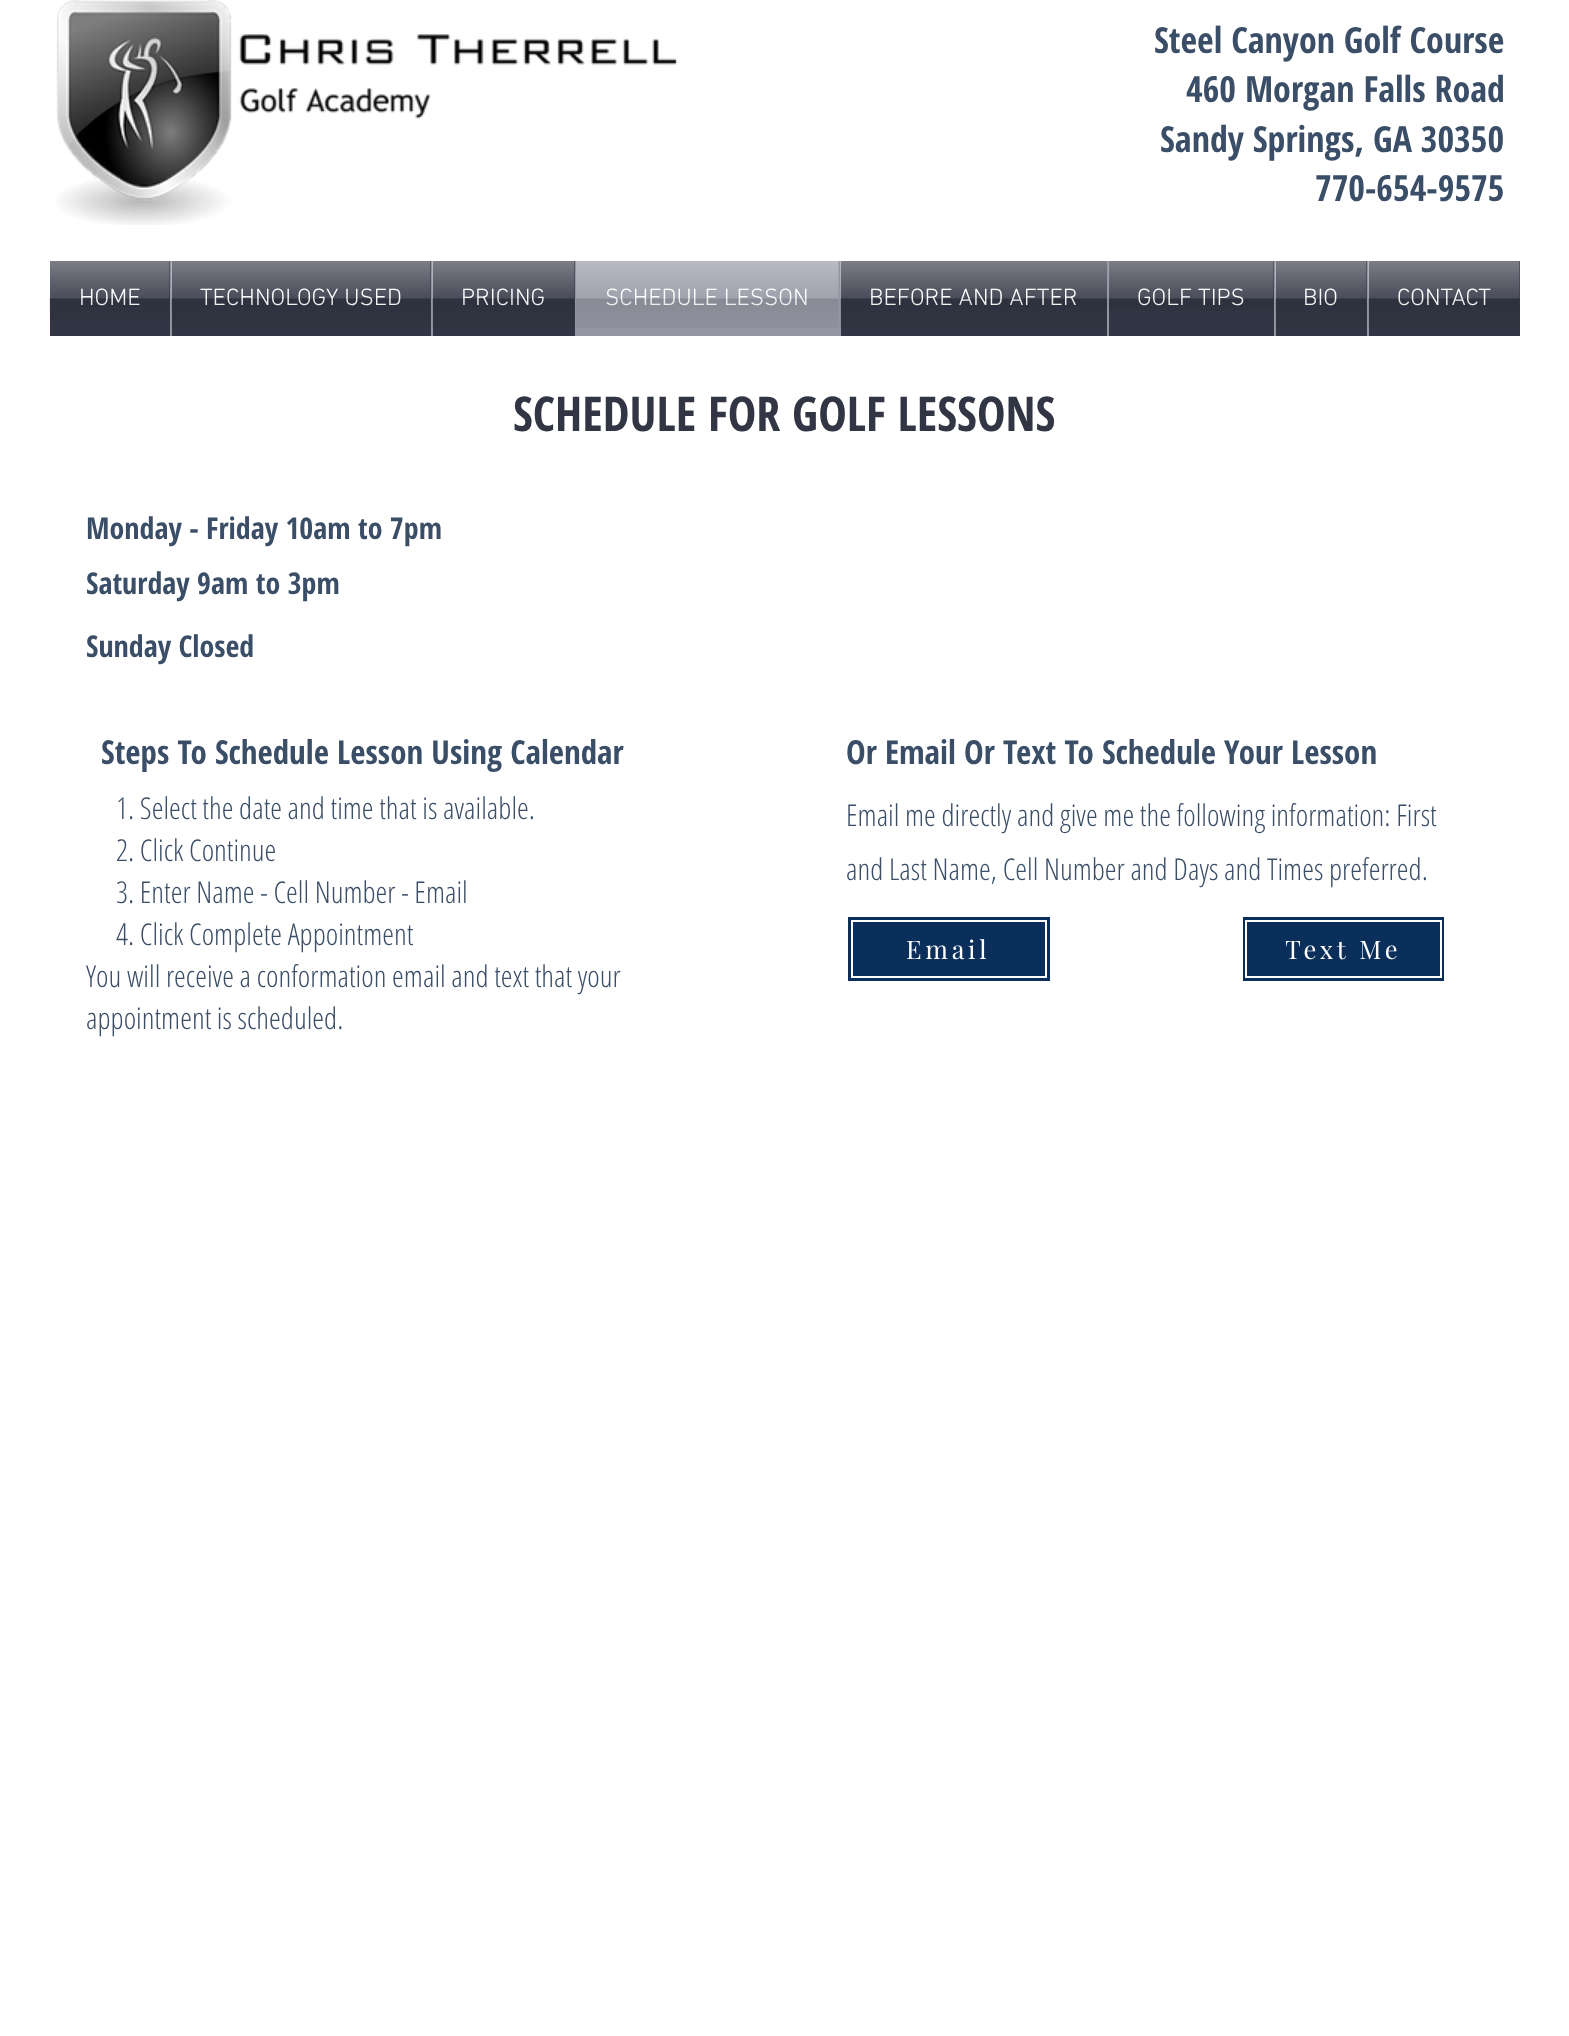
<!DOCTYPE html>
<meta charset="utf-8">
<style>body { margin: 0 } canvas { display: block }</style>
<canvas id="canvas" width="1569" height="2036"></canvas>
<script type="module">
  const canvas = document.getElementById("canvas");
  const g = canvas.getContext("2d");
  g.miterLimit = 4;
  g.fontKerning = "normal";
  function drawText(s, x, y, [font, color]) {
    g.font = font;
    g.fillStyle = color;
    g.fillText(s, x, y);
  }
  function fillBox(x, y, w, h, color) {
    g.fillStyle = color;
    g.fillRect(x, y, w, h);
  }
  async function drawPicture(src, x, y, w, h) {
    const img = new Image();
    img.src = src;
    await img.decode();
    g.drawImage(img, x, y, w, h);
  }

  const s1 = ["bold 36px Open Sans Condensed", "#3B4E67"];
  const s2 = ["300 24px 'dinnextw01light'", "#FFFFFF"];
  const s3 = ["bold 48px Open Sans Condensed", "#323644"];
  const s4 = ["bold 30px Open Sans Condensed", "#3B4E67"];
  const s5 = ["bold 33px Open Sans Condensed", "#3B4E67"];
  const s6 = ["300 30px Open Sans Condensed", "#3B4E67"];
  const s7 = ["25.5px Playfair Display", "#FFFFFF"];

  fillBox(0, 0, 1569, 2036, "#FFFFFF");
  await drawPicture("pic1.png", 56, 0, 621, 225);
  drawText("Steel Canyon Golf Course", 1154, 53, s1);
  drawText("460 Morgan Falls Road", 1186, 102, s1);
  drawText("Sandy Springs, GA 30350", 1160, 152, s1);
  drawText("770-654-9575", 1315, 201, s1);
  await drawPicture("pic2.png", 49, 261, 1, 55);
  fillBox(50, 261, 120, 75, "#323644");
  drawText("HOME", 79, 305, s2);
  await drawPicture("pic3.png", 49, 261, 121, 59);
  fillBox(172, 261, 259, 75, "#323644");
  fillBox(170, 261, 2, 75, "#9396A2");
  drawText("TECHNOLOGY USED", 200, 305, s2);
  await drawPicture("pic4.png", 171, 261, 260, 67);
  fillBox(433, 261, 142, 75, "#323644");
  fillBox(431, 261, 2, 75, "#9396A2");
  drawText("PRICING", 461, 305, s2);
  await drawPicture("pic5.png", 432, 261, 143, 67);
  fillBox(575, 261, 266, 75, "#9396A2");
  drawText("SCHEDULE LESSON", 605, 305, s2);
  await drawPicture("pic6.png", 576, 261, 263, 67);
  fillBox(841, 261, 266, 75, "#323644");
  drawText("BEFORE AND AFTER", 869, 305, s2);
  await drawPicture("pic7.png", 840, 261, 267, 67);
  fillBox(1109, 261, 165, 75, "#323644");
  fillBox(1107, 261, 2, 75, "#9396A2");
  drawText("GOLF TIPS", 1137, 305, s2);
  await drawPicture("pic8.png", 1108, 261, 166, 50);
  fillBox(1276, 261, 91, 75, "#323644");
  fillBox(1274, 261, 2, 75, "#9396A2");
  drawText("BIO", 1303, 305, s2);
  await drawPicture("pic9.png", 1275, 261, 92, 67);
  fillBox(1369, 261, 151, 75, "#323644");
  fillBox(1367, 261, 2, 75, "#9396A2");
  drawText("CONTACT", 1397, 305, s2);
  await drawPicture("pic10.png", 1368, 261, 152, 67);
  drawText("SCHEDULE FOR GOLF LESSONS", 513, 431, s3);
  drawText("Monday - Friday 10am to 7pm", 86, 539, s4);
  drawText("Saturday 9am to 3pm", 86, 594, s4);
  drawText("Sunday Closed", 86, 657, s4);
  drawText("Steps To Schedule Lesson Using Calendar", 101, 764, s5);
  drawText("1. Select the date and time that is available.", 116, 819, s6);
  drawText("2. Click Continue", 116, 861, s6);
  drawText("3. Enter Name - Cell Number - Email", 116, 903, s6);
  drawText("4. Click Complete Appointment", 116, 945, s6);
  drawText("You will receive a conformation email and text that your", 86, 987, s6);
  drawText("appointment is scheduled.", 86, 1029, s6);
  drawText("Or Email Or Text To Schedule Your Lesson", 846, 764, s5);
  drawText("Email me directly and give me the following information: First", 846, 826, s6);
  drawText("and Last Name, Cell Number and Days and Times preferred.", 846, 880, s6);
  fillBox(848, 917, 202, 64, "#0B2F5B");
  g.strokeStyle = "#FFFFFF";
  g.lineWidth = 2;
  g.strokeRect(852, 921, 194, 56);
  g.letterSpacing = "3.75px";
  drawText("Email", 906, 959, s7);
  fillBox(1243, 917, 201, 64, "#0B2F5B");
  g.strokeRect(1246, 921, 195, 56);
  g.save();
  g.beginPath();
  g.rect(1286, 932, 115, 33);
  g.clip();
  drawText("Text Me", 1285, 959, s7);
  g.restore();
</script>
